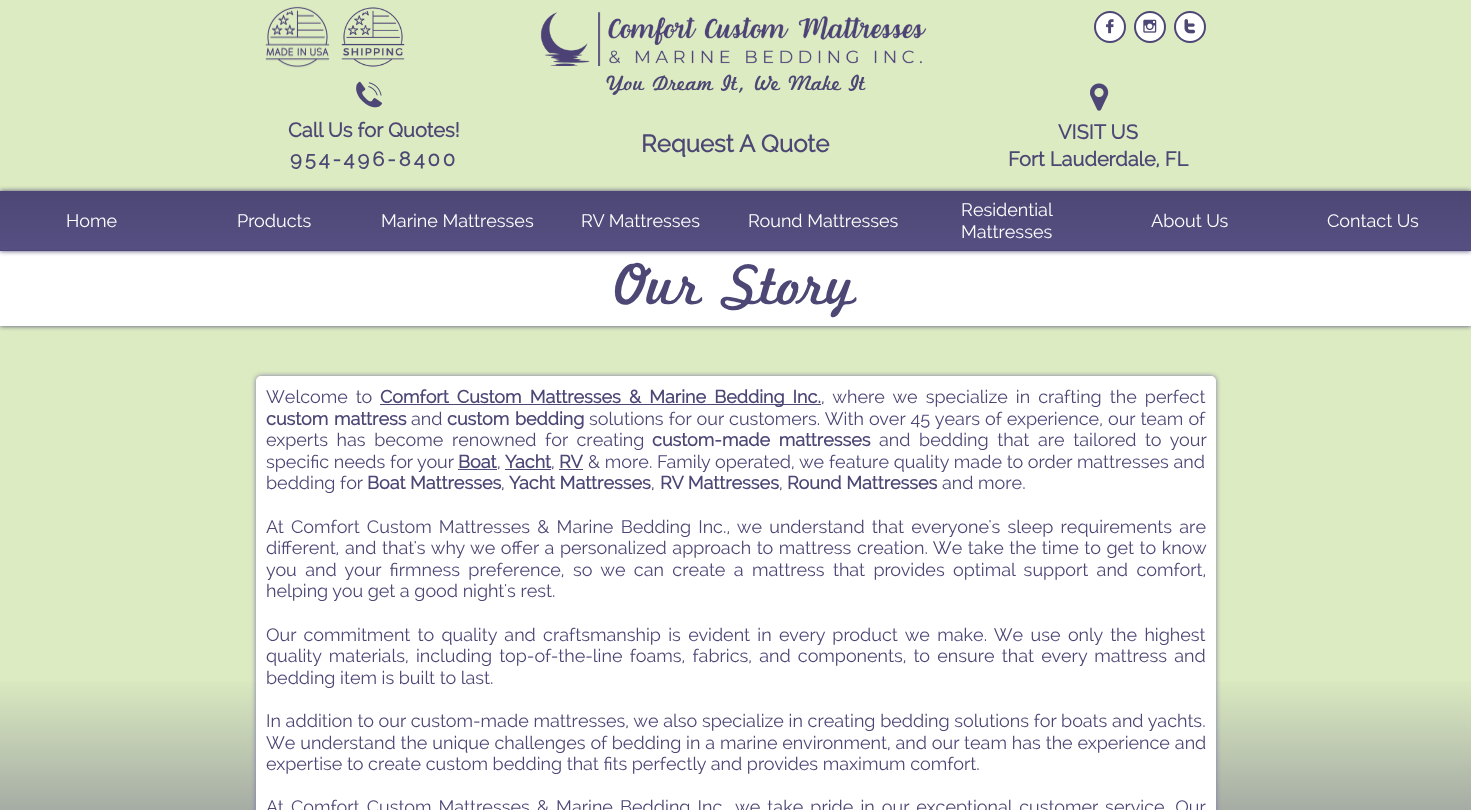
<!DOCTYPE html>
<meta charset="utf-8">
<style>body { margin: 0 } canvas { display: block }</style>
<canvas id="canvas" width="1471" height="810"></canvas>
<script type="module">
  const canvas = document.getElementById("canvas");
  const g = canvas.getContext("2d");
  g.miterLimit = 4;
  g.fontKerning = "normal";
  function drawText(s, x, y, [font, color]) {
    g.font = font;
    g.fillStyle = color;
    g.fillText(s, x, y);
  }
  function fillBox(x, y, w, h, color) {
    g.fillStyle = color;
    g.fillRect(x, y, w, h);
  }
  function fillRounded(x, y, w, h, r, color) {
    g.fillStyle = color;
    g.beginPath();
    g.roundRect(x, y, w, h, r);
    g.fill();
  }
  async function drawPicture(src, x, y, w, h) {
    const img = new Image();
    img.src = src;
    await img.decode();
    g.drawImage(img, x, y, w, h);
  }
  let gradient;

  const s1 = ["22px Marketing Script", "#4D4775"];
  const s2 = ["bold 20px Raleway", "#4D4775"];
  const s3 = ["bold 24px Raleway", "#4D4775"];
  const s4 = ["18px Raleway", "#FFFFFF"];
  const s5 = ["60px Marketing Script", "#4D4775"];
  const s6 = ["18px Raleway", "#4D4775"];
  const s7 = ["bold 18px Raleway", "#4D4775"];

  fillBox(0, 0, 1471, 810, "#DCEBC1");
  await drawPicture("pic1.png", 265, 6, 65, 62);
  await drawPicture("pic2.png", 341, 7, 64, 60);
  await drawPicture("pic3.png", 540, 11, 387, 55);
  g.fillStyle = "#FFFFFF";
  g.beginPath();
  g.arc(1110, 27, 15, 0, Math.PI * 2);
  g.fill();
  g.strokeStyle = "#4D4775";
  g.lineWidth = 2;
  g.stroke();
  await drawPicture("pic4.png", 1106, 19, 8, 15);
  g.beginPath();
  g.arc(1150, 27, 15, 0, Math.PI * 2);
  g.fill();
  g.stroke();
  await drawPicture("pic5.png", 1143, 19, 14, 14);
  g.beginPath();
  g.arc(1190, 27, 15, 0, Math.PI * 2);
  g.fill();
  g.stroke();
  await drawPicture("pic6.png", 1184, 19, 12, 15);
  await drawPicture("pic7.png", 356, 81, 26, 27);
  drawText("You Dream It, We Make It", 606, 90, s1);
  await drawPicture("pic8.png", 1090, 83, 19, 28);
  drawText("Call Us for Quotes!", 288, 137, s2);
  drawText("VISIT US", 1058, 139, s2);
  drawText("Request A Quote", 641, 152, s3);
  g.letterSpacing = "3px";
  drawText("954-496-8400", 290, 166, s2);
  g.letterSpacing = "0px";
  drawText("Fort Lauderdale, FL", 1008, 166, s2);
  fillBox(0, 251, 1471, 75, "#FFFFFF");
  g.save();
  g.beginPath();
  g.rect(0, 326, 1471, 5);
  g.clip();
  g.fillStyle = "#4D4775";
  g.filter = "blur(2.5px)";
  g.beginPath();
  g.rect(0, 251, 1471, 75);
  g.fill();
  g.filter = "none";
  g.restore();
  gradient = g.createLinearGradient(736, 191, 736, 250);
  gradient.addColorStop(0, "#4D4775");
  gradient.addColorStop(1, "#564F82");
  g.fillStyle = gradient;
  g.fillRect(0, 191, 1471, 59);
  g.save();
  g.beginPath();
  g.moveTo(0, 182);
  g.lineTo(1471, 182);
  g.lineTo(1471, 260);
  g.lineTo(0, 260);
  g.closePath();
  g.moveTo(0, 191);
  g.lineTo(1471, 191);
  g.lineTo(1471, 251);
  g.lineTo(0, 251);
  g.closePath();
  g.clip("evenodd");
  g.fillStyle = "#4D4775";
  g.filter = "blur(2.5px)";
  g.beginPath();
  g.rect(0, 191, 1471, 60);
  g.fill();
  g.filter = "none";
  g.restore();
  fillBox(0, 250, 1471, 1, "#4D4775");
  drawText("Home", 66, 227, s4);
  drawText("Products", 237, 227, s4);
  drawText("Marine Mattresses", 381, 227, s4);
  drawText("RV Mattresses", 581, 227, s4);
  drawText("Round Mattresses", 748, 227, s4);
  drawText("Residential", 961, 216, s4);
  drawText("Mattresses", 961, 238, s4);
  drawText("About Us", 1151, 227, s4);
  drawText("Contact Us", 1327, 227, s4);
  drawText("Our Story", 616, 304, s5);
  gradient = g.createLinearGradient(736, 326, 736, 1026);
  gradient.addColorStop(0, "#DCEBC1");
  gradient.addColorStop(0.5, "#DCEBC1");
  gradient.addColorStop(1, "#4D4775");
  g.fillStyle = gradient;
  g.fillRect(0, 681, 1471, 129);
  fillRounded(256, 376, 960, 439, 5, "#FFFFFF");
  g.save();
  g.beginPath();
  g.moveTo(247, 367);
  g.lineTo(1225, 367);
  g.lineTo(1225, 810);
  g.lineTo(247, 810);
  g.closePath();
  g.moveTo(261, 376);
  g.lineTo(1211, 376);
  g.bezierCurveTo(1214, 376, 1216, 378, 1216, 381);
  g.lineTo(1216, 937);
  g.bezierCurveTo(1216, 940, 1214, 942, 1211, 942);
  g.lineTo(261, 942);
  g.bezierCurveTo(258, 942, 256, 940, 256, 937);
  g.lineTo(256, 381);
  g.bezierCurveTo(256, 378, 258, 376, 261, 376);
  g.closePath();
  g.clip("evenodd");
  g.fillStyle = "#7B73AA";
  g.filter = "blur(2.5px)";
  g.beginPath();
  g.roundRect(256, 376, 960, 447, 5);
  g.fill();
  g.filter = "none";
  g.restore();
  g.wordSpacing = "3.5px";
  drawText("Welcome to", 266, 403, s6);
  fillBox(380, 404, 441, 1, "#4D4775");
  drawText("Comfort Custom Mattresses & Marine Bedding Inc.", 380, 403, s7);
  drawText(", where we specialize in crafting the perfect", 821, 403, s6);
  g.wordSpacing = "1px";
  drawText("custom mattress", 266, 425, s7);
  g.wordSpacing = "0px";
  drawText("and", 411, 425, s6);
  g.wordSpacing = "1px";
  drawText("custom bedding", 447, 425, s7);
  g.wordSpacing = "0.5px";
  drawText("solutions for our customers. With over 45 years of experience, our team of", 589, 425, s6);
  g.wordSpacing = "4px";
  drawText("experts has become renowned for creating", 266, 446, s6);
  drawText("custom-made mattresses", 652, 446, s7);
  drawText("and bedding that are tailored to your", 879, 446, s6);
  g.wordSpacing = "0.1px";
  drawText("specific needs for your", 266, 468, s6);
  g.wordSpacing = "0px";
  drawText("Boat", 458, 468, s7);
  drawText(",", 497, 468, s6);
  fillBox(458, 469, 39, 1, "#4D4775");
  drawText("Yacht", 505, 468, s7);
  drawText(",", 551, 468, s6);
  fillBox(505, 469, 46, 1, "#4D4775");
  fillBox(559, 469, 24, 1, "#4D4775");
  drawText("RV", 559, 468, s7);
  g.wordSpacing = "0.1px";
  drawText("& more. Family operated, we feature quality made to order mattresses and", 588, 468, s6);
  g.wordSpacing = "0px";
  drawText("bedding for", 266, 489, s6);
  drawText("Boat Mattresses", 367, 489, s7);
  drawText(",", 501, 489, s6);
  drawText("Yacht Mattresses", 509, 489, s7);
  drawText(",", 651, 489, s6);
  drawText("RV Mattresses", 660, 489, s7);
  drawText(",", 779, 489, s6);
  drawText("Round Mattresses", 787, 489, s7);
  drawText("and more.", 942, 489, s6);
  g.wordSpacing = "2.6px";
  drawText("At Comfort Custom Mattresses & Marine Bedding Inc., we understand that everyone's sleep requirements are", 266, 533, s6);
  g.wordSpacing = "1px";
  drawText("different, and that's why we offer a personalized approach to mattress creation. We take the time to get to know", 266, 554, s6);
  g.wordSpacing = "3.75px";
  drawText("you and your firmness preference, so we can create a mattress that provides optimal support and comfort,", 266, 576, s6);
  g.wordSpacing = "0px";
  drawText("helping you get a good night's rest.", 266, 597, s6);
  g.wordSpacing = "2.75px";
  drawText("Our commitment to quality and craftsmanship is evident in every product we make. We use only the highest", 266, 641, s6);
  g.wordSpacing = "2.6px";
  drawText("quality materials, including top-of-the-line foams, fabrics, and components, to ensure that every mattress and", 266, 662, s6);
  g.wordSpacing = "0px";
  drawText("bedding item is built to last.", 266, 684, s6);
  g.wordSpacing = "0.1px";
  drawText("In addition to our custom-made mattresses, we also specialize in creating bedding solutions for boats and yachts.", 266, 727, s6);
  g.wordSpacing = "0.25px";
  drawText("We understand the unique challenges of bedding in a marine environment, and our team has the experience and", 266, 749, s6);
  g.wordSpacing = "0px";
  drawText("expertise to create custom bedding that fits perfectly and provides maximum comfort.", 266, 770, s6);
  g.wordSpacing = "2.5px";
  drawText("At Comfort Custom Mattresses & Marine Bedding Inc", 266, 813, s6);
  drawText("we take pride in our exceptional customer service. Our", 735, 813, s6);
</script>
